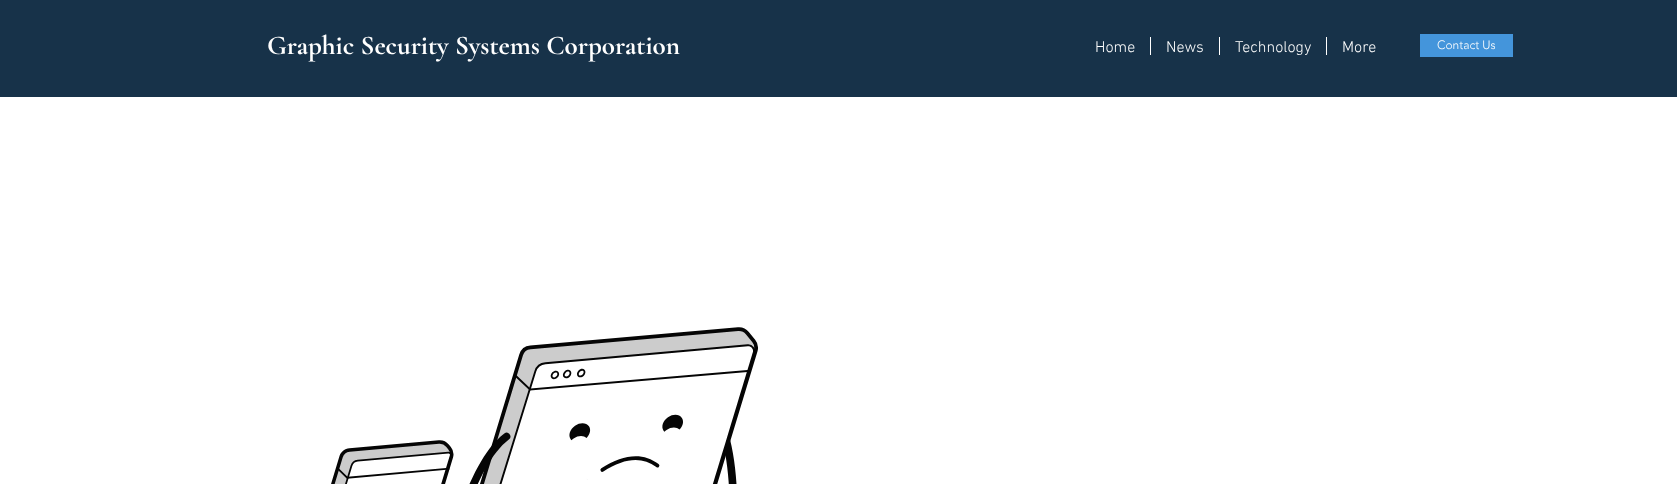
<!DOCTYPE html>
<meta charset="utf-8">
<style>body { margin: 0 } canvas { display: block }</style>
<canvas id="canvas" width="1677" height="484"></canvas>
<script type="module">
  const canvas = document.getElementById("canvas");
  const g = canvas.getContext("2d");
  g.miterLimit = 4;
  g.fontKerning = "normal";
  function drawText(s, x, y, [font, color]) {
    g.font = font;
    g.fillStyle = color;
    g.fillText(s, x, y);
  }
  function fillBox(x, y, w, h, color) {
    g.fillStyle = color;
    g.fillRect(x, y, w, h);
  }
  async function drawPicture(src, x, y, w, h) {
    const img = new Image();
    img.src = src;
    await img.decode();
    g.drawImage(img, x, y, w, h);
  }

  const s1 = ["bold 27px Cormorant Garamond", "#FFFFFF"];
  const s2 = ["300 16px 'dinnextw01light'", "#FFFFFF"];
  const s3 = ["300 12px 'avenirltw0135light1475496'", "#FFFFFF"];

  fillBox(0, 0, 1677, 484, "#FFFFFF");
  fillBox(0, 0, 1677, 97, "#173249");
  drawText("Graphic Security Systems Corporation", 267, 54, s1);
  drawText("Home", 1095, 52, s2);
  fillBox(1150, 37, 1, 18, "#FFFFFF");
  drawText("News", 1166, 52, s2);
  fillBox(1219, 37, 1, 18, "#FFFFFF");
  drawText("Technology", 1235, 52, s2);
  fillBox(1326, 37, 1, 18, "#FFFFFF");
  drawText("More", 1342, 52, s2);
  fillBox(1420, 34, 93, 23, "#4495DB");
  drawText("Contact Us", 1437, 49, s3);
  await drawPicture("pic1.png", 331, 327, 427, 157);
</script>
